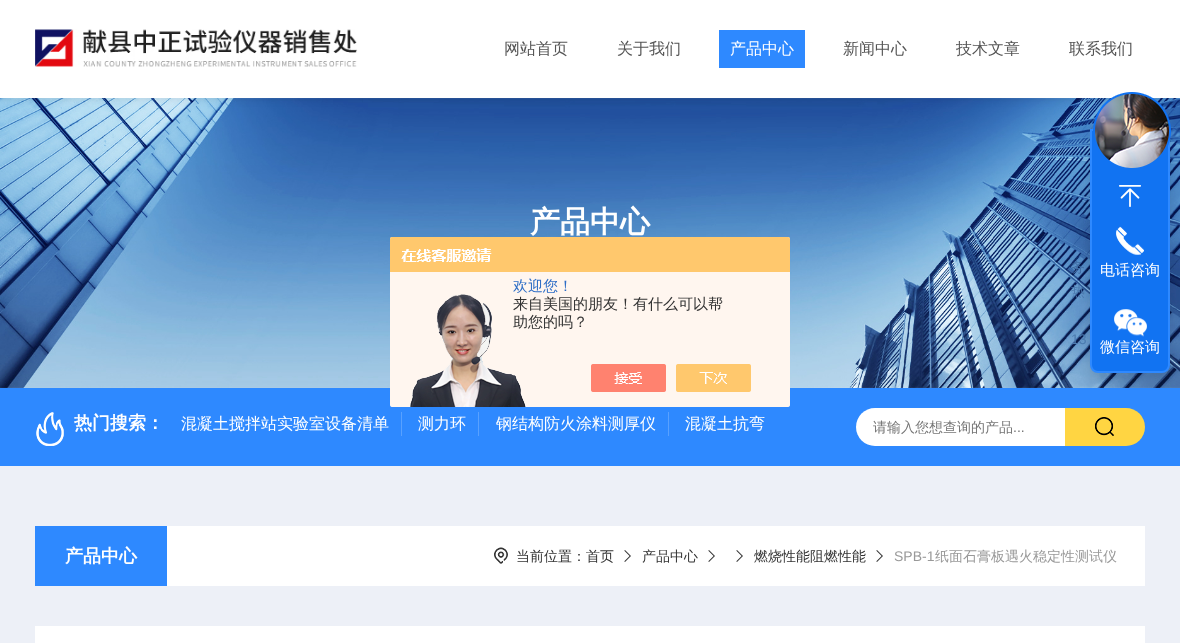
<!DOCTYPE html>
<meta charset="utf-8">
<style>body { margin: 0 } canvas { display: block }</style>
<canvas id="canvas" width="1180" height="643"></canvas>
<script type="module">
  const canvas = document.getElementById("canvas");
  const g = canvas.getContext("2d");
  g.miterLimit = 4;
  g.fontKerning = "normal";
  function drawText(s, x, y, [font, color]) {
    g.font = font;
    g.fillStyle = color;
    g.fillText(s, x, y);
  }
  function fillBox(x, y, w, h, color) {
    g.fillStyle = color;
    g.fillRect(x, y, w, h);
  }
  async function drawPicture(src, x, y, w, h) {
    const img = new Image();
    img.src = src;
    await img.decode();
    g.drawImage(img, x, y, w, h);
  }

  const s1 = ["500 16px WenQuanYi Zen Hei", "#555555"];
  const s2 = ["500 16px WenQuanYi Zen Hei", "#FFFFFF"];
  const s3 = ["bold 30px WenQuanYi Zen Hei", "#FFFFFF"];
  const s4 = ["500 15px WenQuanYi Zen Hei", "#2E6EC6"];
  const s5 = ["500 15px WenQuanYi Zen Hei", "#333333"];
  const s6 = ["500 14px WenQuanYi Zen Hei", "#406DA5"];
  const s7 = ["500 14px WenQuanYi Zen Hei", "#4C7AAF"];
  const s8 = ["14px Liberation Sans", "#4C7AAF"];
  const s9 = ["500 15px WenQuanYi Zen Hei", "#FFFFFF"];
  const s10 = ["bold 18px WenQuanYi Zen Hei", "#FFFFFF"];
  const s11 = ["500 14px WenQuanYi Zen Hei", "#757575"];
  const s12 = ["14px Liberation Sans", "#757575"];
  const s13 = ["500 14px WenQuanYi Zen Hei", "#333333"];
  const s14 = ["14px Liberation Sans", "#999999"];
  const s15 = ["500 14px WenQuanYi Zen Hei", "#999999"];

  fillBox(0, 0, 1180, 643, "#EDF0F7");
  await drawPicture("pic2.png", 0, 98, 1180, 290);
  g.fillStyle = "rgba(0, 0, 0, 0.1)";
  g.filter = "blur(5px)";
  g.beginPath();
  g.rect(0, 0, 1180, 98);
  g.fill();
  g.filter = "none";
  fillBox(0, 0, 1180, 98, "#FFFFFF");
  await drawPicture("pic1.png", 35, 29, 323, 38);
  drawText("网站首页", 504, 54, s1);
  drawText("关于我们", 617, 54, s1);
  fillBox(719, 30, 86, 38, "#2E89FF");
  drawText("产品中心", 730, 54, s2);
  drawText("新闻中心", 843, 54, s1);
  drawText("技术文章", 956, 54, s1);
  drawText("联系我们", 1069, 54, s1);
  drawText("产品中心", 530, 232, s3);
  fillBox(0, 388, 1180, 78, "#2E89FF");
  await drawPicture("pic3.png", 390, 237, 400, 170);
  drawText("欢迎您！", 513, 291, s4);
  drawText("来自美国的朋友！有什么可以帮", 513, 309, s5);
  drawText("助您的吗？", 513, 327, s5);
  g.fillStyle = "rgba(0, 0, 0, 0.1)";
  g.filter = "blur(6px)";
  g.beginPath();
  g.roundRect(1090, 135, 80, 244, 8);
  g.fill();
  g.filter = "none";
  g.fillStyle = "#1173F2";
  g.beginPath();
  g.roundRect(1091, 130, 78, 242, [0, 0, 7, 7]);
  g.fill();
  g.strokeStyle = "#2E89FF";
  g.lineWidth = 2;
  g.stroke();
  await drawPicture("pic4.png", 1093, 92, 78, 76);
  await drawPicture("pic5.png", 1119, 185, 22, 22);
  drawText("务", 1071, 272, s6);
  drawText("热", 1071, 296, s7);
  drawText("13", 1071, 344, s8);
  await drawPicture("pic6.png", 1116, 226, 28, 29);
  drawText("电话咨询", 1100, 275, s9);
  await drawPicture("pic7.png", 1114, 309, 33, 28);
  drawText("微信咨询", 1100, 352, s9);
  await drawPicture("pic8.png", 36, 412, 28, 34);
  drawText("热门搜索：", 74, 429, s10);
  fillBox(401, 412, 1, 24, "#58A1FF");
  drawText("混凝土搅拌站实验室设备清单", 181, 429, s2);
  fillBox(478, 412, 1, 24, "#58A1FF");
  drawText("测力环", 418, 429, s2);
  fillBox(668, 412, 1, 24, "#58A1FF");
  drawText("钢结构防火涂料测厚仪", 496, 429, s2);
  drawText("混凝土抗弯", 685, 429, s2);
  g.beginPath();
  g.roundRect(856, 408, 221, 38, [19, 0, 0, 19]);
  g.fill();
  drawText("请输入您想查询的产品", 873, 432, s11);
  drawText("...", 1013, 432, s12);
  g.fillStyle = "#FFD542";
  g.beginPath();
  g.roundRect(1065, 408, 80, 38, [0, 19, 19, 0]);
  g.fill();
  await drawPicture("pic9.png", 1095, 417, 19, 19);
  fillBox(167, 526, 978, 60, "#FFFFFF");
  fillBox(35, 526, 132, 60, "#2E89FF");
  drawText("产品中心", 65, 562, s10);
  await drawPicture("pic10.png", 494, 547, 14, 17);
  drawText("当前位置：首页", 516, 561, s13);
  await drawPicture("pic11.png", 624, 550, 7, 12);
  drawText("产品中心", 642, 561, s13);
  await drawPicture("pic11.png", 708, 550, 7, 12);
  await drawPicture("pic11.png", 736, 550, 7, 12);
  drawText("燃烧性能阻燃性能", 754, 561, s13);
  await drawPicture("pic11.png", 876, 550, 7, 12);
  drawText("SPB-1", 894, 561, s14);
  drawText("纸面石膏板遇火稳定性测试仪", 935, 561, s15);
  fillBox(35, 626, 1110, 17, "#FFFFFF");
</script>
